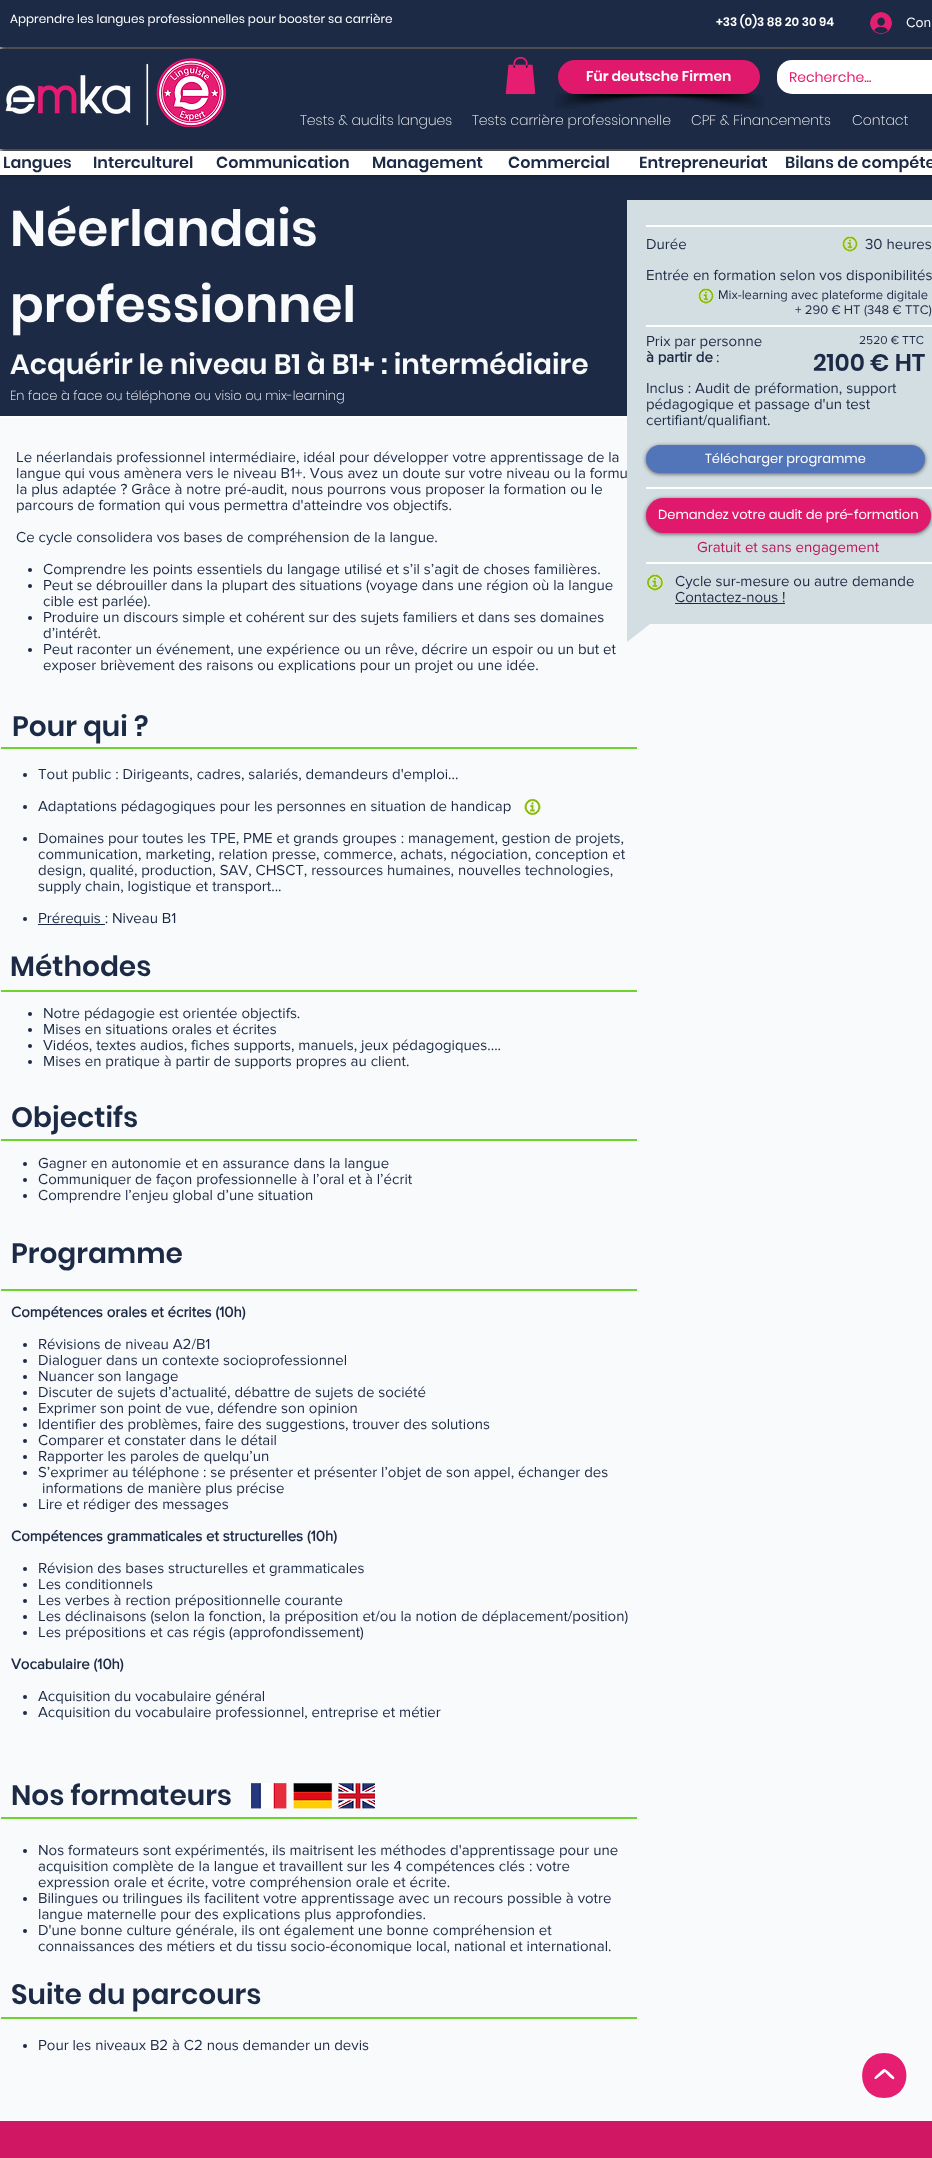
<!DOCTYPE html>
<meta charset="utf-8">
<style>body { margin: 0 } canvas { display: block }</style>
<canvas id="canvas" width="932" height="2158"></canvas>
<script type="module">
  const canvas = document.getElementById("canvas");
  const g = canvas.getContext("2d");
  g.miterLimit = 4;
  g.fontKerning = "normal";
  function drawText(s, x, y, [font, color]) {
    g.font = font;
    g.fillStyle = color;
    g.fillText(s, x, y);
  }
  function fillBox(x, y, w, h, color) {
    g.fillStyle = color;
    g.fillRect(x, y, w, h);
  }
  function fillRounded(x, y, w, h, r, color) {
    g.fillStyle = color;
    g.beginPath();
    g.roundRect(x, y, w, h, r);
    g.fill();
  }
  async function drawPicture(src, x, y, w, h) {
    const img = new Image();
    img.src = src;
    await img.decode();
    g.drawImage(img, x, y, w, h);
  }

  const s1 = ["12px Poppins", "#FFFFFF"];
  const s2 = ["600 12px Poppins", "#FFFFFF"];
  const s3 = ["14px 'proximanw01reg'", "#FFFFFF"];
  const s4 = ["600 14px Poppins", "#FFFFFF"];
  const s5 = ["14px Poppins", "#E61E71"];
  const s6 = ["200 14px Poppins", "#FFFFFF"];
  const s7 = ["600 16px Poppins", "#1C2A45"];
  const s8 = ["600 50px Poppins", "#F8FAFC"];
  const s9 = ["600 28px Poppins", "#F8FAFC"];
  const s10 = ["200 13px Poppins", "#FFFFFF"];
  const s11 = ["15px 'proximanw01reg'", "#1C2A45"];
  const s12 = ["600 28px Poppins", "#1C2A45"];
  const s13 = ["bold 15px 'proximanw01reg'", "#1C2A45"];
  const s14 = ["13px 'proximanw01reg'", "#1C2A45"];
  const s15 = ["12px 'proximanw01reg'", "#1C2A45"];
  const s16 = ["600 24px Poppins", "#1C2A45"];
  const s17 = ["13px Poppins", "#FFFFFF"];
  const s18 = ["15px 'proximanw01reg'", "#BC155B"];

  fillBox(0, 0, 932, 2158, "#FFFFFF");
  fillBox(0, 175, 932, 241, "#1C2A45");
  g.fillStyle = "rgba(0, 0, 0, 0.7)";
  g.filter = "blur(2.5px)";
  g.beginPath();
  g.rect(0, 0, 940, 174);
  g.fill();
  g.filter = "none";
  fillBox(0, 0, 932, 47, "#1C2A45");
  drawText("Apprendre les langues professionnelles pour booster sa carrière", 10, 23, s1);
  drawText("+33 (0)3 88 20 30 94", 716, 26, s2);
  await drawPicture("pic1.png", 870, 12, 22, 22);
  drawText("Con", 906, 27, s3);
  fillBox(0, 49, 932, 100, "#1C2A45");
  await drawPicture("pic2.png", 5, 58, 221, 69);
  await drawPicture("pic3.png", 505, 57, 31, 38);
  fillRounded(558, 60, 202, 34, 17, "#E1196C");
  drawText("Für deutsche Firmen", 586, 81, s4);
  await drawPicture("pic4.png", 554, 94, 134, 15);
  await drawPicture("pic5.png", 646, 94, 118, 15);
  fillRounded(777, 60, 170, 34, 15, "#FFFFFF");
  drawText("Recherche...", 789, 82, s5);
  drawText("Tests & audits langues", 300, 125, s6);
  drawText("Tests carrière professionnelle", 472, 125, s6);
  drawText("CPF & Financements", 691, 125, s6);
  drawText("Contact", 852, 125, s6);
  fillBox(0, 151, 932, 24, "#FFFFFF");
  drawText("Langues", 3, 168, s7);
  drawText("Interculturel", 93, 168, s7);
  drawText("Communication", 216, 168, s7);
  drawText("Management", 372, 168, s7);
  drawText("Commercial", 508, 168, s7);
  drawText("Entrepreneuriat", 639, 168, s7);
  drawText("Bilans de compéte", 785, 168, s7);
  drawText("Néerlandais", 10, 246, s8);
  drawText("professionnel", 10, 322, s8);
  drawText("Acquérir le niveau B1 à B1+ : intermédiaire", 10, 374, s9);
  drawText("En face à face ou téléphone ou visio ou mix-learning", 10, 400, s10);
  fillBox(0, 418, 932, 1703, "#F8FAFC");
  drawText("Le néerlandais professionnel intermédiaire, idéal pour développer votre apprentissage de la", 16, 462, s11);
  drawText("langue qui vous amènera vers le niveau B1+. Vous avez un doute sur votre niveau ou la formu", 16, 478, s11);
  drawText("la plus adaptée ? Grâce à notre pré-audit, nous pourrons vous proposer la formation ou le", 16, 494, s11);
  drawText("parcours de formation qui vous permettra d'atteindre vos objectifs.", 16, 510, s11);
  drawText("Ce cycle consolidera vos bases de compréhension de la langue.", 16, 542, s11);
  g.beginPath();
  g.arc(30, 570, 2, 0, Math.PI * 2);
  g.fill();
  drawText("Comprendre les points essentiels du langage utilisé et s’il s’agit de choses familières.", 43, 574, s11);
  g.beginPath();
  g.arc(30, 586, 2, 0, Math.PI * 2);
  g.fill();
  drawText("Peut se débrouiller dans la plupart des situations (voyage dans une région où la langue", 43, 590, s11);
  drawText("cible est parlée).", 43, 606, s11);
  g.beginPath();
  g.arc(30, 618, 2, 0, Math.PI * 2);
  g.fill();
  drawText("Produire un discours simple et cohérent sur des sujets familiers et dans ses domaines", 43, 622, s11);
  drawText("d’intérêt.", 43, 638, s11);
  g.beginPath();
  g.arc(30, 650, 2, 0, Math.PI * 2);
  g.fill();
  drawText("Peut raconter un événement, une expérience ou un rêve, décrire un espoir ou un but et", 43, 654, s11);
  drawText("exposer brièvement des raisons ou explications pour un projet ou une idée.", 43, 670, s11);
  drawText("Pour qui ?", 12, 736, s12);
  fillBox(1, 747, 636, 2, "#6DD42C");
  g.fillStyle = "#1C2A45";
  g.beginPath();
  g.arc(25, 775, 2, 0, Math.PI * 2);
  g.fill();
  drawText("Tout public : Dirigeants, cadres, salariés, demandeurs d'emploi...", 38, 779, s11);
  g.beginPath();
  g.arc(25, 807, 2, 0, Math.PI * 2);
  g.fill();
  drawText("Adaptations pédagogiques pour les personnes en situation de handicap", 38, 811, s11);
  g.beginPath();
  g.arc(25, 839, 2, 0, Math.PI * 2);
  g.fill();
  drawText("Domaines pour toutes les TPE, PME et grands groupes : management, gestion de projets,", 38, 843, s11);
  drawText("communication, marketing, relation presse, commerce, achats, négociation, conception et", 38, 859, s11);
  drawText("design, qualité, production, SAV, CHSCT, ressources humaines, nouvelles technologies,", 38, 875, s11);
  drawText("supply chain, logistique et transport...", 38, 891, s11);
  g.beginPath();
  g.arc(25, 919, 2, 0, Math.PI * 2);
  g.fill();
  fillBox(38, 924, 67, 1, "#1C2A45");
  drawText("Prérequis : Niveau B1", 38, 923, s11);
  await drawPicture("pic6.png", 524, 798, 17, 17);
  drawText("Méthodes", 10, 976, s12);
  fillBox(1, 990, 636, 2, "#6DD42C");
  g.fillStyle = "#1C2A45";
  g.beginPath();
  g.arc(30, 1014, 2, 0, Math.PI * 2);
  g.fill();
  drawText("Notre pédagogie est orientée objectifs.", 43, 1018, s11);
  g.beginPath();
  g.arc(30, 1030, 2, 0, Math.PI * 2);
  g.fill();
  drawText("Mises en situations orales et écrites", 43, 1034, s11);
  g.beginPath();
  g.arc(30, 1046, 2, 0, Math.PI * 2);
  g.fill();
  drawText("Vidéos, textes audios, fiches supports, manuels, jeux pédagogiques....", 43, 1050, s11);
  g.beginPath();
  g.arc(30, 1062, 2, 0, Math.PI * 2);
  g.fill();
  drawText("Mises en pratique à partir de supports propres au client.", 43, 1066, s11);
  drawText("Objectifs", 11, 1127, s12);
  fillBox(1, 1139, 636, 2, "#6DD42C");
  g.fillStyle = "#1C2A45";
  g.beginPath();
  g.arc(25, 1164, 2, 0, Math.PI * 2);
  g.fill();
  drawText("Gagner en autonomie et en assurance dans la langue", 38, 1168, s11);
  g.beginPath();
  g.arc(25, 1180, 2, 0, Math.PI * 2);
  g.fill();
  drawText("Communiquer de façon professionnelle à l’oral et à l’écrit", 38, 1184, s11);
  g.beginPath();
  g.arc(25, 1196, 2, 0, Math.PI * 2);
  g.fill();
  drawText("Comprendre l’enjeu global d’une situation", 38, 1200, s11);
  drawText("Programme", 11, 1263, s12);
  fillBox(1, 1289, 636, 2, "#6DD42C");
  drawText("Compétences orales et écrites (10h)", 11, 1317, s13);
  g.beginPath();
  g.arc(25, 1345, 2, 0, Math.PI * 2);
  g.fill();
  drawText("Révisions de niveau A2/B1", 38, 1349, s11);
  g.beginPath();
  g.arc(25, 1361, 2, 0, Math.PI * 2);
  g.fill();
  drawText("Dialoguer dans un contexte socioprofessionnel", 38, 1365, s11);
  g.beginPath();
  g.arc(25, 1377, 2, 0, Math.PI * 2);
  g.fill();
  drawText("Nuancer son langage", 38, 1381, s11);
  g.beginPath();
  g.arc(25, 1393, 2, 0, Math.PI * 2);
  g.fill();
  drawText("Discuter de sujets d’actualité, débattre de sujets de société", 38, 1397, s11);
  g.beginPath();
  g.arc(25, 1409, 2, 0, Math.PI * 2);
  g.fill();
  drawText("Exprimer son point de vue, défendre son opinion", 38, 1413, s11);
  g.beginPath();
  g.arc(25, 1425, 2, 0, Math.PI * 2);
  g.fill();
  drawText("Identifier des problèmes, faire des suggestions, trouver des solutions", 38, 1429, s11);
  g.beginPath();
  g.arc(25, 1441, 2, 0, Math.PI * 2);
  g.fill();
  drawText("Comparer et constater dans le détail", 38, 1445, s11);
  g.beginPath();
  g.arc(25, 1457, 2, 0, Math.PI * 2);
  g.fill();
  drawText("Rapporter les paroles de quelqu’un", 38, 1461, s11);
  g.beginPath();
  g.arc(25, 1473, 2, 0, Math.PI * 2);
  g.fill();
  drawText("S’exprimer au téléphone : se présenter et présenter l’objet de son appel, échanger des", 38, 1477, s11);
  drawText("informations de manière plus précise", 42, 1493, s11);
  g.beginPath();
  g.arc(25, 1505, 2, 0, Math.PI * 2);
  g.fill();
  drawText("Lire et rédiger des messages", 38, 1509, s11);
  drawText("Compétences grammaticales et structurelles (10h)", 11, 1541, s13);
  g.beginPath();
  g.arc(25, 1569, 2, 0, Math.PI * 2);
  g.fill();
  drawText("Révision des bases structurelles et grammaticales", 38, 1573, s11);
  g.beginPath();
  g.arc(25, 1585, 2, 0, Math.PI * 2);
  g.fill();
  drawText("Les conditionnels", 38, 1589, s11);
  g.beginPath();
  g.arc(25, 1601, 2, 0, Math.PI * 2);
  g.fill();
  drawText("Les verbes à rection prépositionnelle courante", 38, 1605, s11);
  g.beginPath();
  g.arc(25, 1617, 2, 0, Math.PI * 2);
  g.fill();
  drawText("Les déclinaisons (selon la fonction, la préposition et/ou la notion de déplacement/position)", 38, 1621, s11);
  g.beginPath();
  g.arc(25, 1633, 2, 0, Math.PI * 2);
  g.fill();
  drawText("Les prépositions et cas régis (approfondissement)", 38, 1637, s11);
  drawText("Vocabulaire (10h)", 11, 1669, s13);
  g.beginPath();
  g.arc(25, 1697, 2, 0, Math.PI * 2);
  g.fill();
  drawText("Acquisition du vocabulaire général", 38, 1701, s11);
  g.beginPath();
  g.arc(25, 1713, 2, 0, Math.PI * 2);
  g.fill();
  drawText("Acquisition du vocabulaire professionnel, entreprise et métier", 38, 1717, s11);
  drawText("Nos formateurs", 11, 1805, s12);
  await drawPicture("pic7.png", 251, 1783, 124, 26);
  fillBox(1, 1817, 636, 2, "#6DD42C");
  g.fillStyle = "#1C2A45";
  g.beginPath();
  g.arc(25, 1851, 2, 0, Math.PI * 2);
  g.fill();
  drawText("Nos formateurs sont expérimentés, ils maitrisent les méthodes d'apprentissage pour une", 38, 1855, s11);
  drawText("acquisition complète de la langue et travaillent sur les 4 compétences clés : votre", 38, 1871, s11);
  drawText("expression orale et écrite, votre compréhension orale et écrite.", 38, 1887, s11);
  g.beginPath();
  g.arc(25, 1899, 2, 0, Math.PI * 2);
  g.fill();
  drawText("Bilingues ou trilingues ils facilitent votre apprentissage avec un recours possible à votre", 38, 1903, s11);
  drawText("langue maternelle pour des explications plus approfondies.", 38, 1919, s11);
  g.beginPath();
  g.arc(25, 1931, 2, 0, Math.PI * 2);
  g.fill();
  drawText("D'une bonne culture générale, ils ont également une bonne compréhension et", 38, 1935, s11);
  drawText("connaissances des métiers et du tissu socio-économique local, national et international.", 38, 1951, s11);
  drawText("Suite du parcours", 11, 2004, s12);
  fillBox(1, 2017, 636, 2, "#6DD42C");
  g.fillStyle = "#1C2A45";
  g.beginPath();
  g.arc(25, 2046, 2, 0, Math.PI * 2);
  g.fill();
  drawText("Pour les niveaux B2 à C2 nous demander un devis", 38, 2050, s11);
  fillBox(627, 200, 305, 424, "#D3DEE3");
  fillBox(646, 225, 286, 2, "#FFFFFF");
  drawText("Durée", 646, 249, s11);
  await drawPicture("pic8.png", 842, 236, 16, 16);
  drawText("30 heures", 865, 249, s11);
  drawText("Entrée en formation selon vos disponibilités", 646, 280, s11);
  await drawPicture("pic8.png", 698, 288, 16, 16);
  drawText("Mix-learning avec plateforme digitale", 718, 299, s14);
  drawText("+ 290 € HT (348 € TTC)", 795, 314, s14);
  fillBox(646, 325, 286, 2, "#FFFFFF");
  drawText("Prix par personne", 646, 346, s11);
  drawText("à partir de", 646, 362, s13);
  drawText(":", 716, 362, s11);
  drawText("2520 € TTC", 859, 344, s15);
  drawText("2100 € HT", 813, 371, s16);
  drawText("Inclus : Audit de préformation, support", 646, 393, s11);
  drawText("pédagogique et passage d'un test", 646, 409, s11);
  drawText("certifiant/qualifiant.", 646, 425, s11);
  g.fillStyle = "rgba(0, 0, 0, 0.6)";
  g.filter = "blur(2px)";
  g.beginPath();
  g.roundRect(646, 446, 279, 28, 14);
  g.fill();
  g.filter = "none";
  fillRounded(646, 445, 279, 28, 14, "#5175B8");
  drawText("Télécharger programme", 705, 463, s17);
  fillBox(646, 487, 286, 2, "#FFFFFF");
  g.fillStyle = "rgba(0, 0, 0, 0.6)";
  g.filter = "blur(2px)";
  g.beginPath();
  g.roundRect(646, 499, 285, 35, 17.5);
  g.fill();
  g.filter = "none";
  fillRounded(646, 498, 285, 35, 17.5, "#E1196C");
  drawText("Demandez votre audit de pré-formation", 658, 519, s17);
  drawText("Gratuit et sans engagement", 697, 552, s18);
  fillBox(646, 562, 286, 2, "#FFFFFF");
  await drawPicture("pic9.png", 646, 574, 18, 17);
  drawText("Cycle sur-mesure ou autre demande", 675, 586, s11);
  drawText("Contactez-nous !", 675, 602, s11);
  fillBox(675, 603, 110, 1, "#1C2A45");
  g.fillStyle = "#D3DEE3";
  g.beginPath();
  g.moveTo(627, 624);
  g.lineTo(650, 624);
  g.lineTo(627, 642);
  g.closePath();
  g.fill();
  g.fillStyle = "#E61E71";
  g.beginPath();
  g.moveTo(884, 2053);
  g.bezierCurveTo(855, 2053, 855, 2098, 884, 2098);
  g.bezierCurveTo(914, 2098, 914, 2053, 884, 2053);
  g.closePath();
  g.moveTo(894, 2079);
  g.bezierCurveTo(893, 2081, 886, 2073, 885, 2072);
  g.lineTo(876, 2079);
  g.lineTo(875, 2079);
  g.bezierCurveTo(873, 2078, 877, 2075, 878, 2074);
  g.bezierCurveTo(885, 2068, 883, 2067, 890, 2073);
  g.bezierCurveTo(890, 2074, 896, 2077, 894, 2079);
  g.closePath();
  g.fill();
  fillBox(0, 2122, 932, 36, "#CF1763");
  fillBox(0, 2121, 932, 1, "#D21865");
</script>
